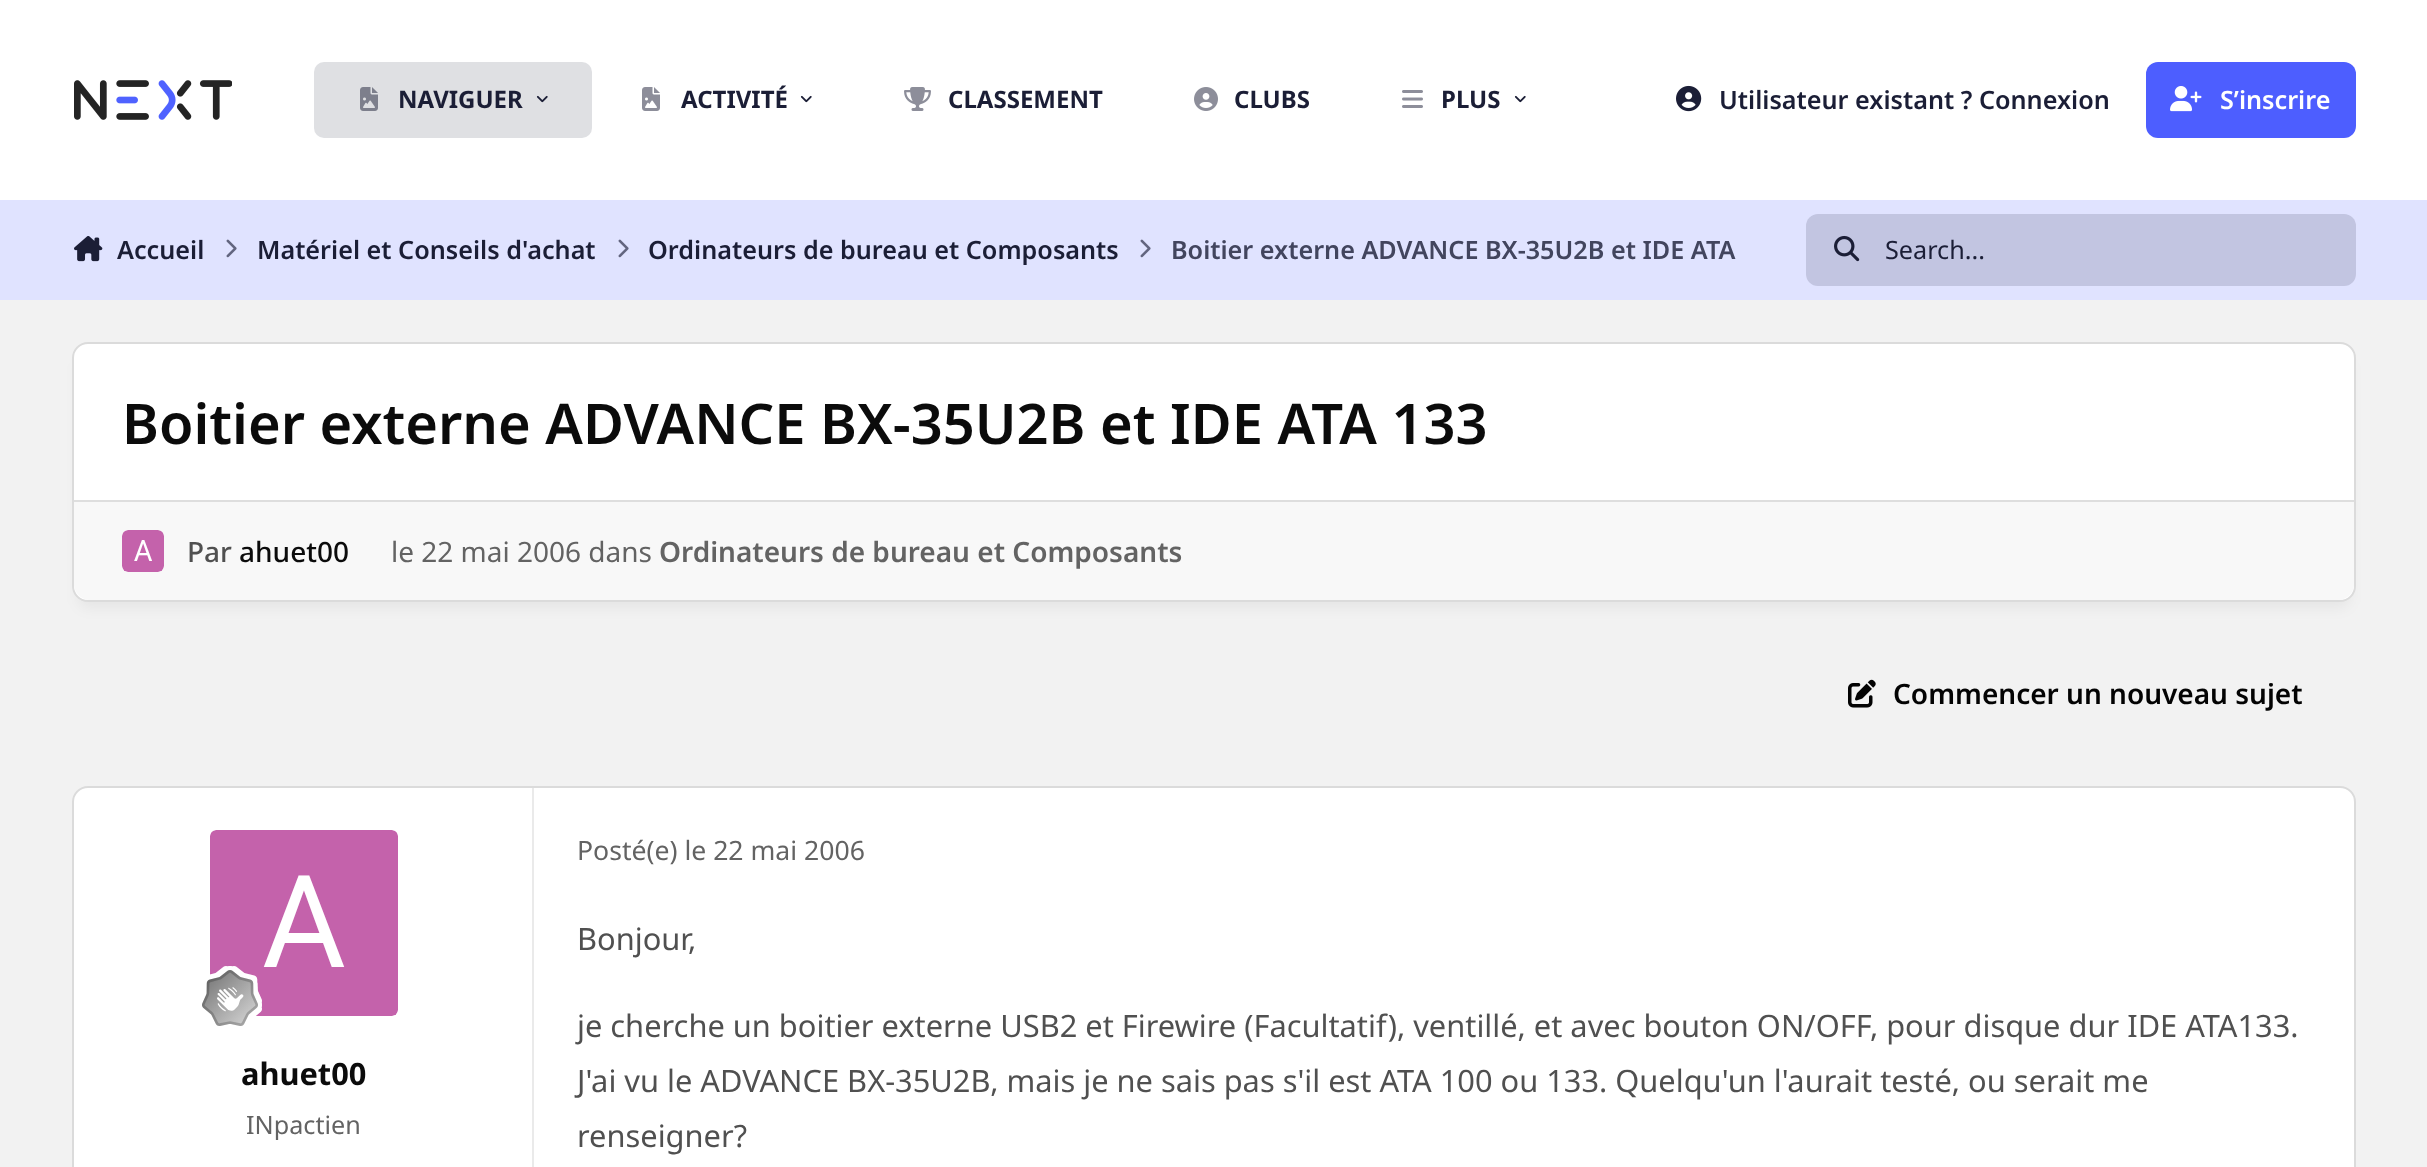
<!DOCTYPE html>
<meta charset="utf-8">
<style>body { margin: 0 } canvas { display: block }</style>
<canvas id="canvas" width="2427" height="1167"></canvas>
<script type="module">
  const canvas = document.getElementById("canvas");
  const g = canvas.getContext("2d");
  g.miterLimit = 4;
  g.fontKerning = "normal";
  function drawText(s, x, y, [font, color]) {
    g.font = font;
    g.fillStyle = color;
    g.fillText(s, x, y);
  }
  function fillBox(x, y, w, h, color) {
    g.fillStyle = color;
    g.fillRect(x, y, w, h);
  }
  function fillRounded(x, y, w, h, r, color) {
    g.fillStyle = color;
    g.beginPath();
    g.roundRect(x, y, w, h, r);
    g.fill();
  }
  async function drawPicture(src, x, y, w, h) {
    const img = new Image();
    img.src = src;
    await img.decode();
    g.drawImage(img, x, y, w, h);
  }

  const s1 = ["bold 24px Noto Sans", "#1B1E36"];
  const s2 = ["600 25.2px Noto Sans", "#1B1E36"];
  const s3 = ["600 25.2px Noto Sans", "#FFFFFF"];
  const s4 = ["600 25.2px Noto Sans", "#42455E"];
  const s5 = ["25.2px Noto Sans", "#1B1E36"];
  const s6 = ["600 56px Noto Sans", "#0B0B0B"];
  const s7 = ["500 28px Noto Sans", "#505050"];
  const s8 = ["500 28px Noto Sans", "#0B0B0B"];
  const s9 = ["28px Noto Sans", "#636363"];
  const s10 = ["600 28px Noto Sans", "#636363"];
  const s11 = ["600 28px Noto Sans", "#030303"];
  const s12 = ["bold 30.8px Noto Sans", "#0B0B0B"];
  const s13 = ["25.2px Noto Sans", "#636363"];
  const s14 = ["26.6px Noto Sans", "#636363"];
  const s15 = ["30.8px Noto Sans", "#505050"];

  fillBox(0, 0, 2427, 1167, "#F2F2F2");
  fillBox(0, 0, 2427, 200, "#FFFFFF");
  await drawPicture("pic1.png", 74, 80, 158, 40);
  fillRounded(314, 62, 278, 76, 10, "#DFE0E3");
  await drawPicture("pic2.png", 360, 87, 18, 24);
  drawText("NAVIGUER", 398, 108, s1);
  await drawPicture("pic3.png", 536, 95, 12, 8);
  await drawPicture("pic4.png", 642, 87, 18, 24);
  drawText("ACTIVITÉ", 681, 108, s1);
  await drawPicture("pic5.png", 800, 95, 12, 8);
  await drawPicture("pic6.png", 904, 87, 27, 24);
  drawText("CLASSEMENT", 948, 108, s1);
  await drawPicture("pic7.png", 1194, 87, 24, 24);
  drawText("CLUBS", 1234, 108, s1);
  await drawPicture("pic8.png", 1402, 90, 21, 18);
  drawText("PLUS", 1441, 108, s1);
  await drawPicture("pic5.png", 1514, 95, 12, 8);
  await drawPicture("pic9.png", 1676, 85, 26, 27);
  drawText("Utilisateur existant ? Connexion", 1719, 109, s2);
  fillRounded(2146, 62, 210, 76, 12, "#4D5EFF");
  await drawPicture("pic10.png", 2170, 86, 32, 26);
  drawText("S’inscrire", 2220, 109, s3);
  fillBox(0, 200, 2427, 100, "#E0E3FF");
  await drawPicture("pic11.png", 74, 236, 29, 26);
  drawText("Accueil", 117, 259, s2);
  await drawPicture("pic12.png", 226, 239, 11, 19);
  drawText("Matériel et Conseils d'achat", 257, 259, s2);
  await drawPicture("pic12.png", 618, 239, 11, 19);
  drawText("Ordinateurs de bureau et Composants", 648, 259, s2);
  await drawPicture("pic12.png", 1140, 239, 11, 19);
  drawText("Boitier externe ADVANCE BX-35U2B et IDE ATA", 1171, 259, s4);
  fillRounded(1806, 214, 550, 72, 12, "#C2C5E1");
  await drawPicture("pic13.png", 1834, 235, 26, 27);
  drawText("Search...", 1885, 259, s5);
  g.fillStyle = "rgba(3, 3, 3, 0.05)";
  g.filter = "blur(7px)";
  g.beginPath();
  g.roundRect(78, 360, 2272, 248, 10);
  g.fill();
  g.filter = "none";
  g.fillStyle = "#FFFFFF";
  g.beginPath();
  g.roundRect(73, 343, 2282, 258, 15);
  g.fill();
  g.strokeStyle = "#DBDBDB";
  g.lineWidth = 2;
  g.stroke();
  drawText("Boitier externe ADVANCE BX-35U2B et IDE ATA 133", 122, 444, s6);
  g.fillStyle = "#F8F8F8";
  g.beginPath();
  g.roundRect(74, 500, 2280, 100, [0, 0, 16, 16]);
  g.fill();
  fillBox(74, 500, 2280, 2, "#DEDEDE");
  await drawPicture("pic14.png", 122, 530, 42, 42);
  drawText("Par", 187, 562, s7);
  drawText("ahuet00", 239, 562, s8);
  drawText("le 22 mai 2006 dans", 391, 562, s9);
  drawText("Ordinateurs de bureau et Composants", 659, 562, s10);
  await drawPicture("pic15.png", 1848, 679, 28, 29);
  drawText("Commencer un nouveau sujet", 1893, 704, s11);
  g.fillStyle = "#FFFFFF";
  g.beginPath();
  g.roundRect(73, 787, 2282, 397, 15);
  g.fill();
  g.stroke();
  fillBox(532, 788, 2, 379, "#EAEAEA");
  await drawPicture("pic16.png", 210, 830, 188, 186);
  await drawPicture("pic17.png", 202, 966, 60, 60);
  drawText("ahuet00", 241, 1085, s12);
  drawText("INpactien", 246, 1134, s13);
  drawText("Posté(e) le 22 mai 2006", 577, 860, s14);
  drawText("Bonjour,", 577, 950, s15);
  drawText("je cherche un boitier externe USB2 et Firewire (Facultatif), ventillé, et avec bouton ON/OFF, pour disque dur IDE ATA133.", 577, 1037, s15);
  drawText("J'ai vu le ADVANCE BX-35U2B, mais je ne sais pas s'il est ATA 100 ou 133. Quelqu'un l'aurait testé, ou serait me", 577, 1092, s15);
  drawText("renseigner?", 577, 1147, s15);
</script>
